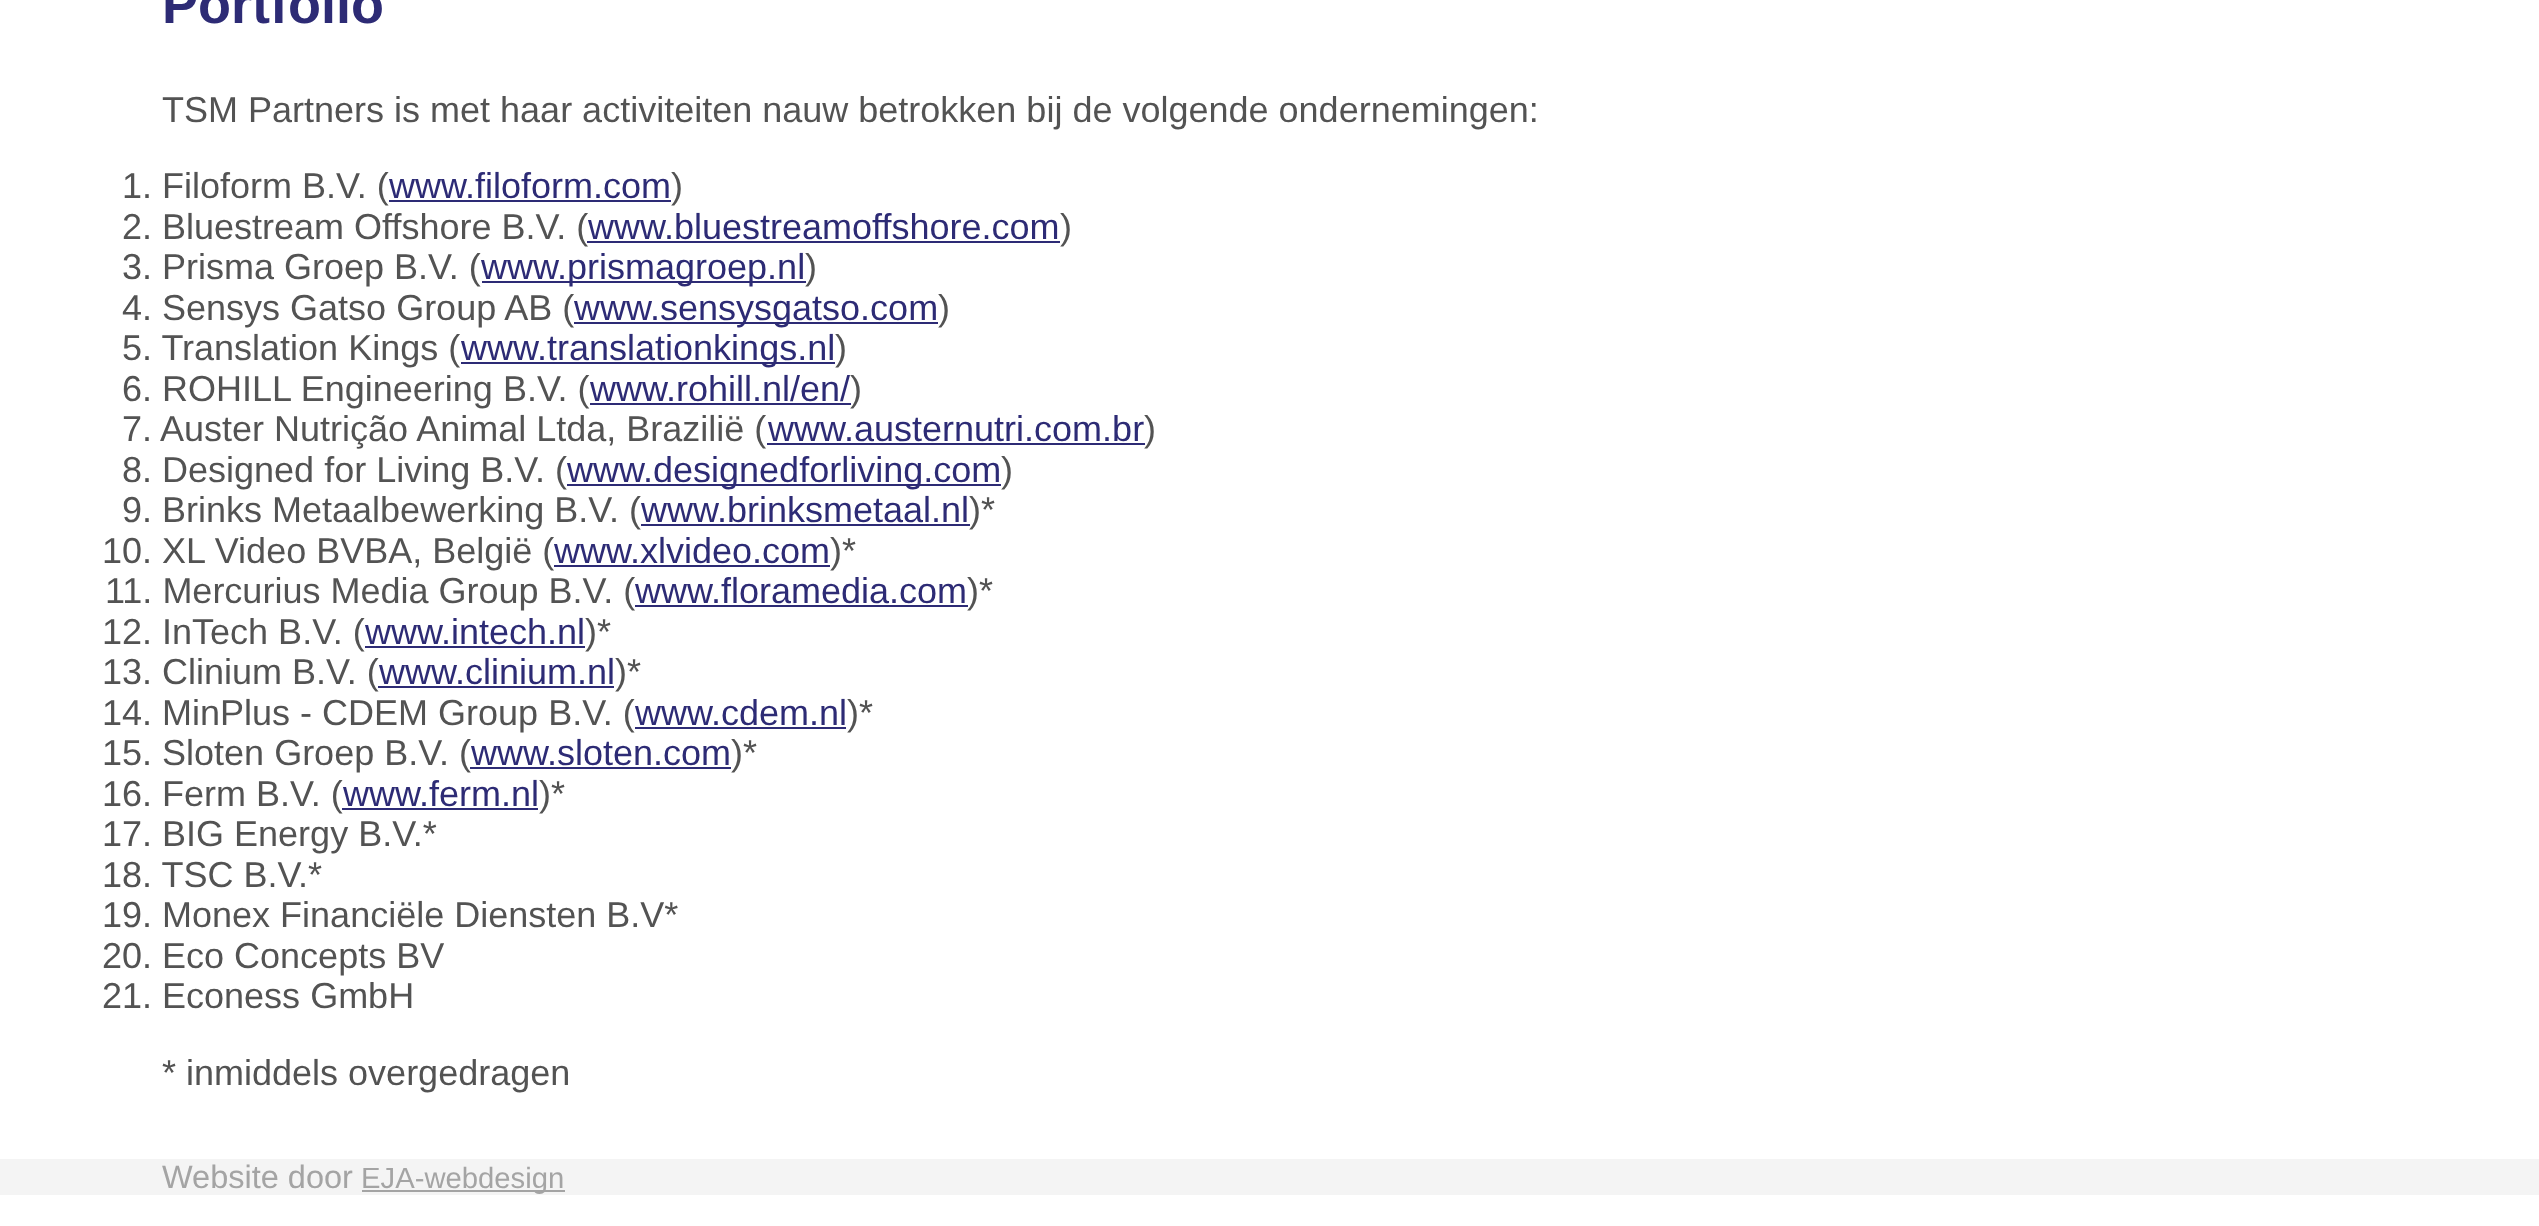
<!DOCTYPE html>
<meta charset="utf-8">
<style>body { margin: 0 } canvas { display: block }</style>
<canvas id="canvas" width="2539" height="1226"></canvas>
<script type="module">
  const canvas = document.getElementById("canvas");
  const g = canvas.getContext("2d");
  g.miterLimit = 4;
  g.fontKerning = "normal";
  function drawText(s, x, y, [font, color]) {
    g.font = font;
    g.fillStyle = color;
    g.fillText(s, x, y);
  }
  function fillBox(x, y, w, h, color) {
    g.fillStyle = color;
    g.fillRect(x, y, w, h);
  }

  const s1 = ["bold 54px Liberation Sans", "#2D2B75"];
  const s2 = ["36px Liberation Sans", "#535353"];
  const s3 = ["36px Liberation Sans", "#2D2B75"];
  const s4 = ["32.5px Liberation Sans", "#A4A4A4"];
  const s5 = ["29.25px Liberation Sans", "#A4A4A4"];

  fillBox(0, 0, 2539, 1226, "#FFFFFF");
  drawText("Portfolio", 162, 23, s1);
  drawText("TSM Partners is met haar activiteiten nauw betrokken bij de volgende ondernemingen:", 162, 122, s2);
  drawText("1. Filoform B.V. (", 122, 198, s2);
  drawText("www.filoform.com", 389, 198, s3);
  fillBox(389, 200, 282, 2, "#2D2B75");
  drawText(")", 671, 198, s2);
  drawText("2. Bluestream Offshore B.V. (", 122, 239, s2);
  drawText("www.bluestreamoffshore.com", 588, 239, s3);
  fillBox(587, 241, 473, 2, "#2D2B75");
  drawText(")", 1060, 239, s2);
  drawText("3. Prisma Groep B.V. (", 122, 279, s2);
  fillBox(482, 281, 324, 2, "#2D2B75");
  drawText("www.prismagroep.nl", 481, 279, s3);
  drawText(")", 805, 279, s2);
  drawText("4. Sensys Gatso Group AB (", 122, 320, s2);
  fillBox(574, 322, 364, 2, "#2D2B75");
  drawText("www.sensysgatso.com", 574, 320, s3);
  drawText(")", 938, 320, s2);
  drawText("5. Translation Kings (", 122, 360, s2);
  fillBox(461, 362, 374, 2, "#2D2B75");
  drawText("www.translationkings.nl", 461, 360, s3);
  drawText(")", 835, 360, s2);
  drawText("6. ROHILL Engineering B.V. (", 122, 401, s2);
  drawText("www.rohill.nl/en/", 590, 401, s3);
  fillBox(590, 403, 261, 2, "#2D2B75");
  drawText(")", 850, 401, s2);
  drawText("7. Auster Nutrição Animal Ltda, Brazilië (", 122, 441, s2);
  drawText("www.austernutri.com.br", 768, 441, s3);
  fillBox(767, 443, 378, 2, "#2D2B75");
  drawText(")", 1144, 441, s2);
  drawText("8. Designed for Living B.V. (", 122, 482, s2);
  fillBox(567, 484, 434, 2, "#2D2B75");
  drawText("www.designedforliving.com", 567, 482, s3);
  drawText(")", 1001, 482, s2);
  drawText("9. Brinks Metaalbewerking B.V. (", 122, 522, s2);
  drawText("www.brinksmetaal.nl", 641, 522, s3);
  fillBox(641, 524, 329, 2, "#2D2B75");
  drawText(")*", 969, 522, s2);
  drawText("10. XL Video BVBA, België (", 102, 563, s2);
  drawText("www.xlvideo.com", 554, 563, s3);
  fillBox(554, 565, 276, 2, "#2D2B75");
  drawText(")*", 830, 563, s2);
  drawText("11. Mercurius Media Group B.V. (", 105, 603, s2);
  drawText("www.floramedia.com", 635, 603, s3);
  fillBox(635, 605, 333, 2, "#2D2B75");
  drawText(")*", 967, 603, s2);
  drawText("12. InTech B.V. (", 102, 644, s2);
  drawText("www.intech.nl", 365, 644, s3);
  fillBox(365, 646, 220, 2, "#2D2B75");
  drawText(")*", 585, 644, s2);
  drawText("13. Clinium B.V. (", 102, 684, s2);
  drawText("www.clinium.nl", 379, 684, s3);
  fillBox(378, 686, 236, 2, "#2D2B75");
  drawText(")*", 615, 684, s2);
  drawText("14. MinPlus - CDEM Group B.V. (", 102, 725, s2);
  drawText("www.cdem.nl", 635, 725, s3);
  fillBox(635, 727, 211, 2, "#2D2B75");
  drawText(")*", 847, 725, s2);
  drawText("15. Sloten Groep B.V. (", 102, 765, s2);
  drawText("www.sloten.com", 471, 765, s3);
  fillBox(470, 767, 261, 2, "#2D2B75");
  drawText(")*", 731, 765, s2);
  drawText("16. Ferm B.V. (", 102, 806, s2);
  drawText("www.ferm.nl", 343, 806, s3);
  fillBox(342, 808, 196, 2, "#2D2B75");
  drawText(")*", 539, 806, s2);
  drawText("17. BIG Energy B.V.*", 102, 846, s2);
  drawText("18. TSC B.V.*", 102, 887, s2);
  drawText("19. Monex Financiële Diensten B.V*", 102, 927, s2);
  drawText("20. Eco Concepts BV", 102, 968, s2);
  drawText("21. Econess GmbH", 102, 1008, s2);
  drawText("* inmiddels overgedragen", 162, 1085, s2);
  fillBox(0, 1159, 2539, 36, "#F4F4F4");
  drawText("Website door", 162, 1188, s4);
  fillBox(362, 1190, 203, 2, "#A4A4A4");
  drawText("EJA-webdesign", 361, 1188, s5);
</script>
